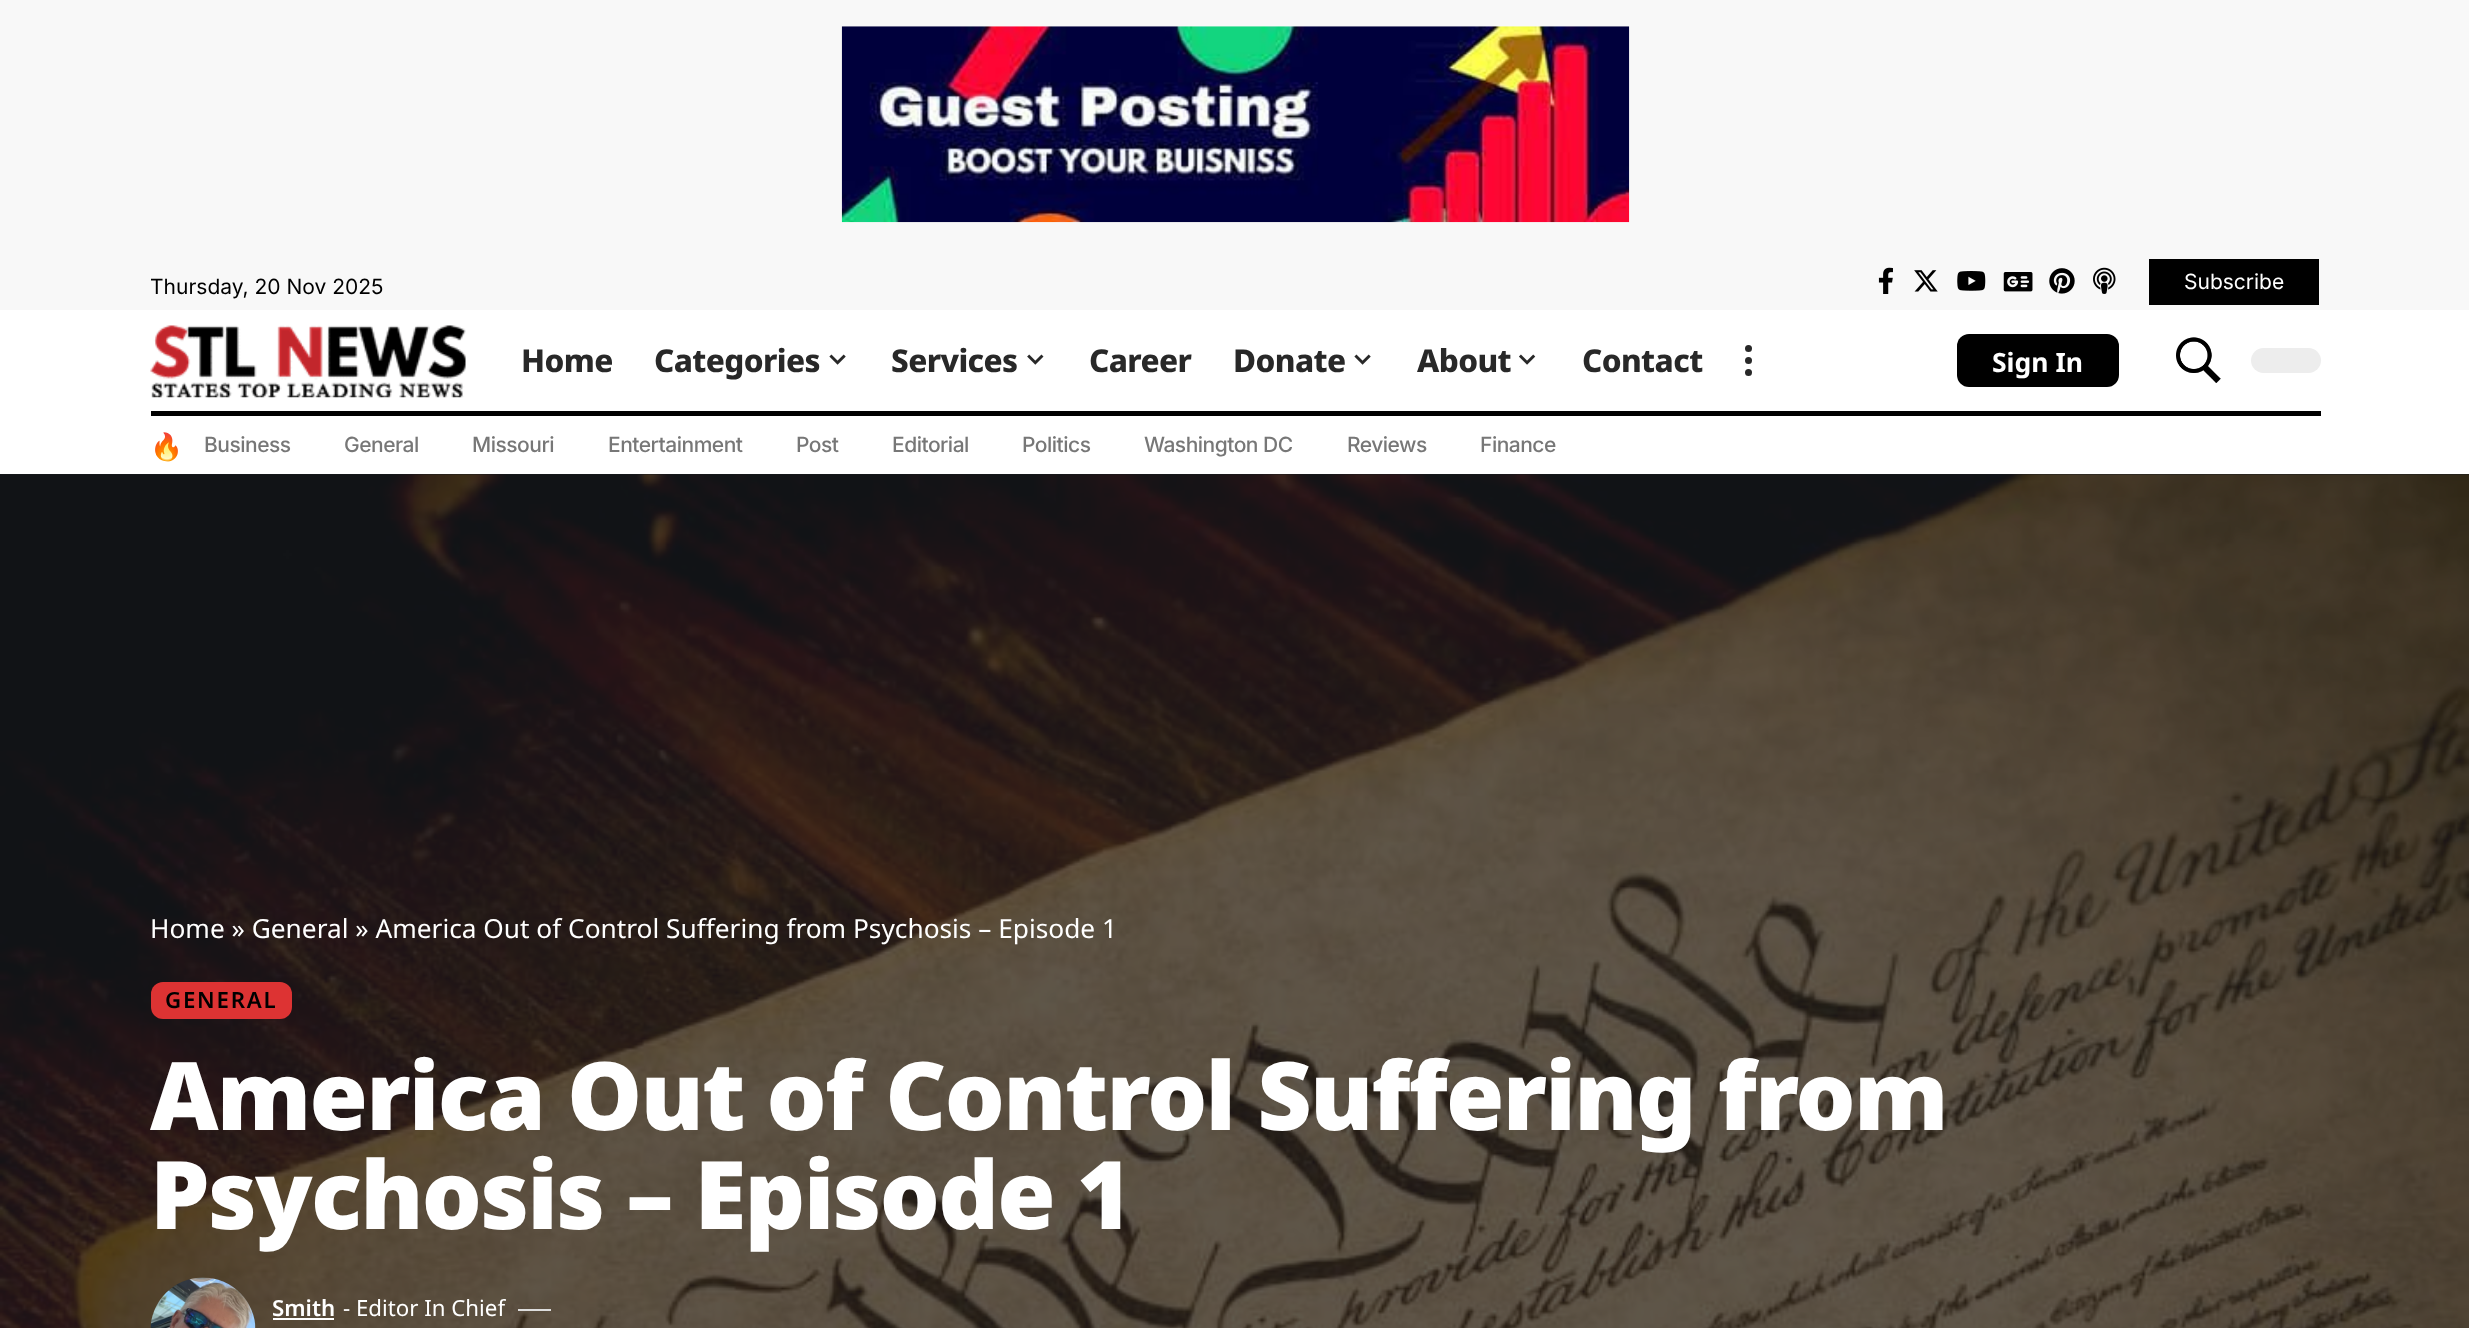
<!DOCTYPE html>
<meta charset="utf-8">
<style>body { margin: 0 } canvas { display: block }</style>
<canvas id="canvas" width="2469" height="1328"></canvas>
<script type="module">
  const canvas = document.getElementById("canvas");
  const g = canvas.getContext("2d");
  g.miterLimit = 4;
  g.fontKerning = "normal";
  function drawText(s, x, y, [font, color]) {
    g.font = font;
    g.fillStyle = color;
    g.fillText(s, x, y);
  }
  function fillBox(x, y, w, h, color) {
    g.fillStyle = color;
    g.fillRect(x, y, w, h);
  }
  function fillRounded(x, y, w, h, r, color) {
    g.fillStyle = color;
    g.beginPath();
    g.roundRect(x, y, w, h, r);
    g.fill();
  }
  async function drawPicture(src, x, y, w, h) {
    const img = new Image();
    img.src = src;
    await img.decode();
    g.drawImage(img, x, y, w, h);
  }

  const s1 = ["21px Inter", "#000000"];
  const s2 = ["21px Inter", "#FFFFFF"];
  const s3 = ["800 31.5px Noto Sans", "#282828"];
  const s4 = ["bold 26.5px Noto Sans", "#FFFFFF"];
  const s5 = ["26.5px Noto Color Emoji", "#000000"];
  const s6 = ["500 21px Inter", "#777777"];
  const s7 = ["26.25px Noto Sans", "#FFFFFF"];
  const s8 = ["600 22.25px Noto Sans", "#000000"];
  const s9 = ["900 94.5px Noto Sans", "#FFFFFF"];
  const s10 = ["600 22.25px Noto Sans", "#FFFFFF"];
  const s11 = ["22.25px Noto Sans", "#FFFFFF"];

  fillBox(0, 0, 2469, 1328, "#FFFFFF");
  fillBox(0, 0, 2469, 310, "#F8F8F8");
  await drawPicture("pic1.png", 841, 26, 789, 197);
  drawText("Thursday, 20 Nov 2025", 150, 294, s1);
  await drawPicture("pic2.png", 1878, 267, 15, 27);
  await drawPicture("pic3.png", 1914, 270, 24, 22);
  await drawPicture("pic4.png", 1957, 271, 29, 20);
  await drawPicture("pic5.png", 2003, 272, 30, 20);
  await drawPicture("pic6.png", 2049, 268, 26, 26);
  await drawPicture("pic7.png", 2093, 267, 23, 27);
  fillBox(2149, 259, 170, 46, "#000000");
  drawText("Subscribe", 2184, 289, s2);
  await drawPicture("pic8.png", 150, 325, 316, 73);
  g.letterSpacing = "-0.6px";
  drawText("Home", 521, 372, s3);
  drawText("Categories", 654, 372, s3);
  await drawPicture("pic9.png", 829, 354, 17, 11);
  drawText("Services", 891, 372, s3);
  await drawPicture("pic10.png", 1027, 354, 17, 11);
  drawText("Career", 1089, 372, s3);
  drawText("Donate", 1233, 372, s3);
  await drawPicture("pic9.png", 1354, 354, 17, 11);
  drawText("About", 1417, 372, s3);
  await drawPicture("pic11.png", 1519, 354, 17, 11);
  drawText("Contact", 1582, 372, s3);
  g.beginPath();
  g.arc(1748.5, 348.5, 3.5, 0, Math.PI * 2);
  g.fill();
  g.beginPath();
  g.arc(1748.5, 360.5, 3.5, 0, Math.PI * 2);
  g.fill();
  g.beginPath();
  g.arc(1748.5, 372.5, 3.5, 0, Math.PI * 2);
  g.fill();
  fillRounded(1957, 334, 162, 53, 12, "#000000");
  g.letterSpacing = "0px";
  drawText("Sign In", 1992, 372, s4);
  await drawPicture("pic12.png", 2176, 337, 45, 46);
  fillRounded(2251, 348, 70, 25, 12.5, "#EDEDED");
  fillBox(151, 411, 2170, 5, "#000000");
  g.save();
  g.beginPath();
  g.rect(151, 417, 2170, 57);
  g.clip();
  drawText("🔥", 150, 456, s5);
  g.restore();
  g.letterSpacing = "-0.5px";
  drawText("Business", 204, 452, s6);
  drawText("General", 344, 452, s6);
  drawText("Missouri", 472, 452, s6);
  drawText("Entertainment", 608, 452, s6);
  drawText("Post", 796, 452, s6);
  drawText("Editorial", 892, 452, s6);
  drawText("Politics", 1022, 452, s6);
  drawText("Washington DC", 1144, 452, s6);
  drawText("Reviews", 1347, 452, s6);
  drawText("Finance", 1480, 452, s6);
  fillBox(0, 474, 2469, 854, "#191C20");
  await drawPicture("pic13.png", 0, 474, 2469, 854);
  g.letterSpacing = "0px";
  drawText("Home » General » America Out of Control Suffering from Psychosis – Episode 1", 150, 938, s7);
  fillRounded(151, 982, 141, 37, 12, "#DD3333");
  g.letterSpacing = "1.75px";
  drawText("GENERAL", 165, 1008, s8);
  g.letterSpacing = "-1.75px";
  drawText("America Out of Control Suffering from", 150, 1130, s9);
  drawText("Psychosis – Episode 1", 150, 1229, s9);
  await drawPicture("pic14.png", 150, 1277, 106, 51);
  g.letterSpacing = "0px";
  drawText("Smith", 272, 1316, s10);
  fillBox(273, 1318, 61, 2, "#FFFFFF");
  drawText("- Editor In Chief", 343, 1316, s11);
  fillBox(518, 1309, 33, 2, "#DDDDDD");
</script>
